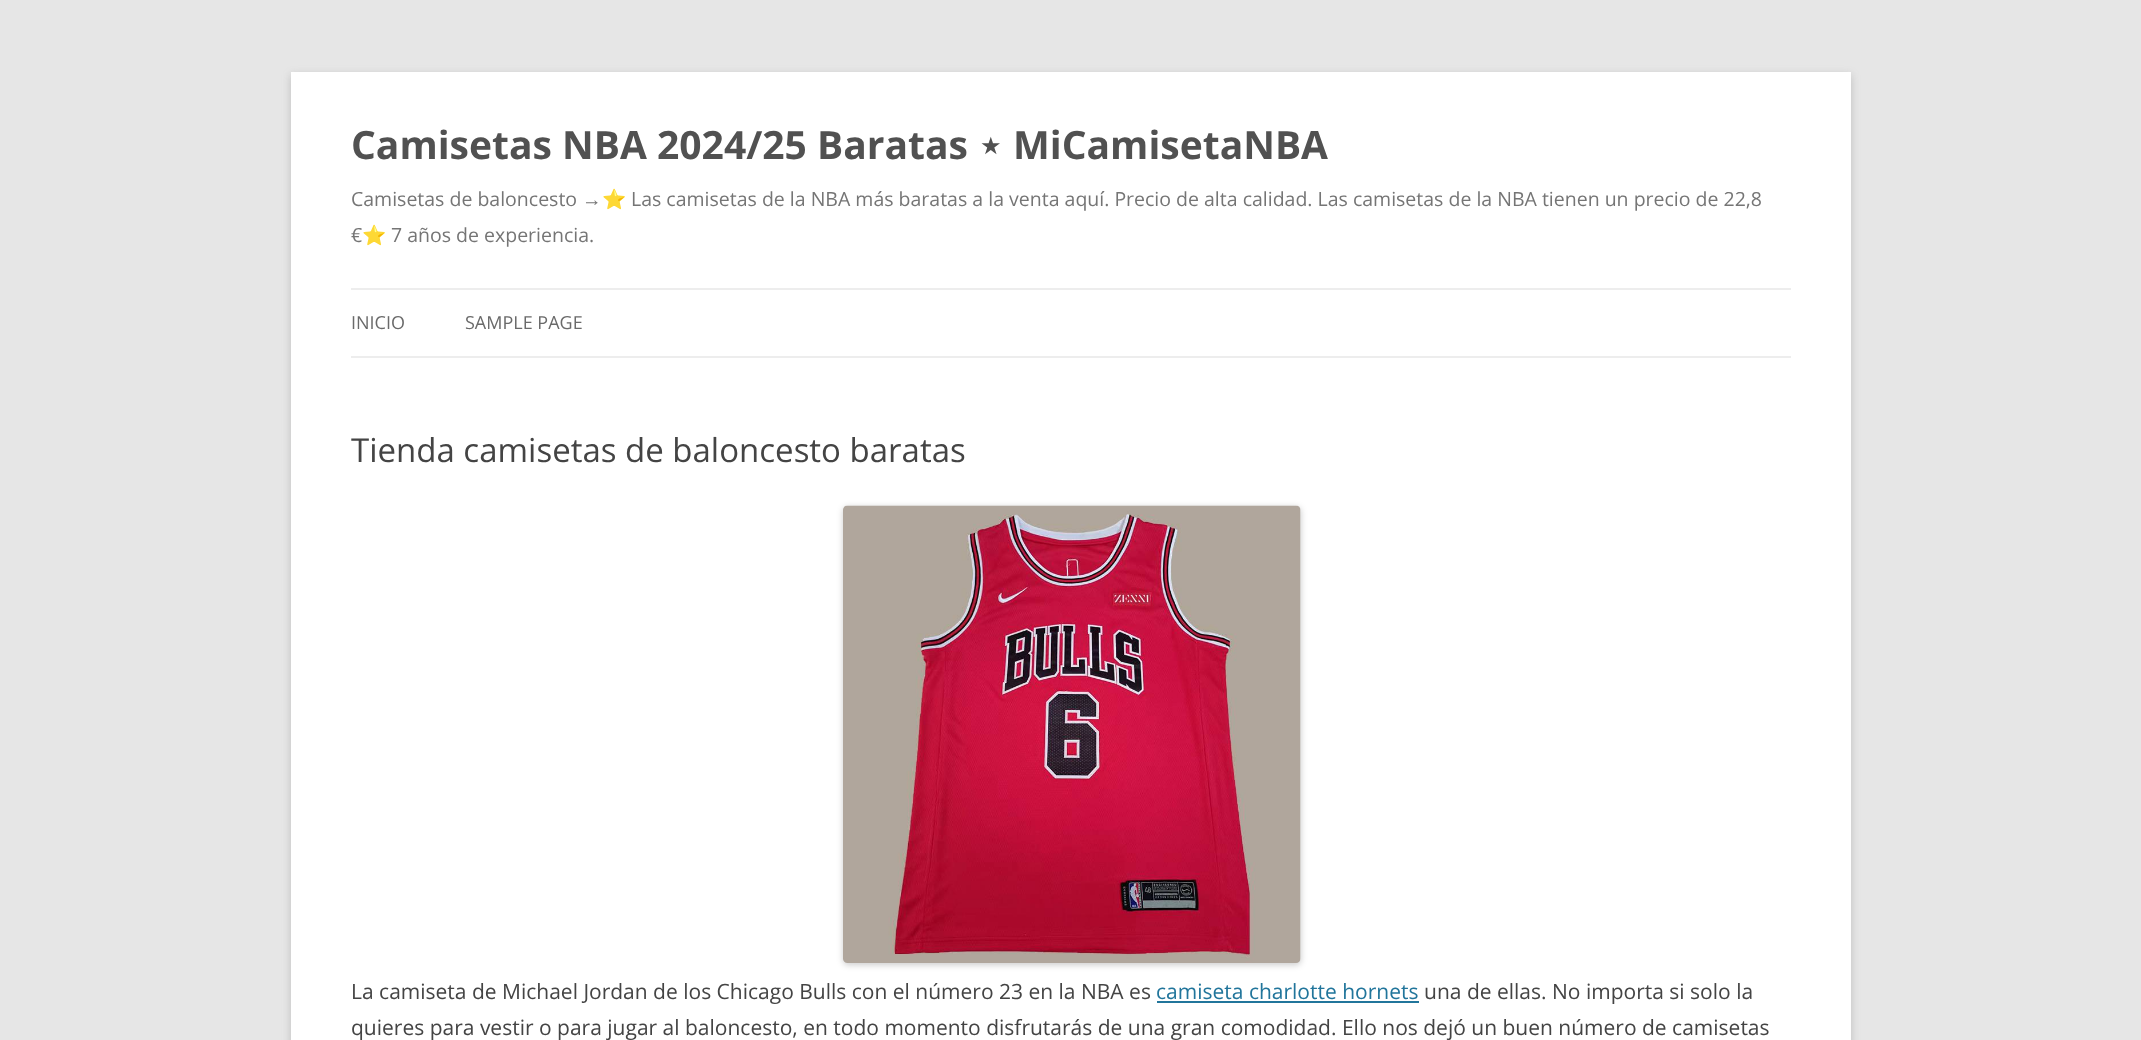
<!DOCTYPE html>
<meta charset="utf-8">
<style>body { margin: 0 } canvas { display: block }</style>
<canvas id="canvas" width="2141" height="1040"></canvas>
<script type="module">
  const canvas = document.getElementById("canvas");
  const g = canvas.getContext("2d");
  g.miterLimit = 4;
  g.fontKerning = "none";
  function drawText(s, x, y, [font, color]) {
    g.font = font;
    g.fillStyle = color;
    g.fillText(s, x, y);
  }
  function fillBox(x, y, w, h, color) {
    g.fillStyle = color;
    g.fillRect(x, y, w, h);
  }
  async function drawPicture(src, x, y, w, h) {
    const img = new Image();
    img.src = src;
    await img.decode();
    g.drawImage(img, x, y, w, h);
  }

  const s1 = ["bold 39px Open Sans", "#515151"];
  const s2 = ["bold 39px DejaVu Sans", "#515151"];
  const s3 = ["19.5px Open Sans", "#757575"];
  const s4 = ["19.5px Liberation Sans", "#757575"];
  const s5 = ["19.5px Noto Color Emoji", "#757575"];
  const s6 = ["18px Open Sans", "#6A6A6A"];
  const s7 = ["33px Open Sans", "#444444"];
  const s8 = ["21px Open Sans", "#444444"];
  const s9 = ["21px Open Sans", "#21759B"];

  fillBox(0, 0, 2141, 1040, "#E6E6E6");
  g.fillStyle = "rgba(100, 100, 100, 0.3)";
  g.filter = "blur(4.5px)";
  g.beginPath();
  g.rect(291, 75, 1560, 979);
  g.fill();
  g.filter = "none";
  fillBox(291, 72, 1560, 968, "#FFFFFF");
  drawText("Camisetas NBA 2024/25 Baratas", 351, 159, s1);
  drawText("⋆", 978, 159, s2);
  drawText("MiCamisetaNBA", 1013, 159, s1);
  drawText("Camisetas de baloncesto", 351, 206, s3);
  drawText("→", 582, 206, s4);
  drawText("⭐", 602, 206, s5);
  drawText("Las camisetas de la NBA más baratas a la venta aquí. Precio de alta calidad. Las camisetas de la NBA tienen un precio de 22,8", 631, 206, s3);
  drawText("€", 351, 242, s3);
  drawText("⭐", 362, 242, s5);
  drawText("7 años de experiencia.", 391, 242, s3);
  fillBox(351, 288, 1440, 2, "#EDEDED");
  fillBox(351, 356, 1440, 2, "#EDEDED");
  drawText("INICIO", 351, 329, s6);
  drawText("SAMPLE PAGE", 465, 329, s6);
  drawText("Tienda camisetas de baloncesto baratas", 351, 462, s7);
  g.fillStyle = "rgba(0, 0, 0, 0.2)";
  g.filter = "blur(3px)";
  g.beginPath();
  g.roundRect(843, 507, 458, 458, 5);
  g.fill();
  g.filter = "none";
  await drawPicture("pic1.png", 843, 505, 458, 458);
  drawText("La camiseta de Michael Jordan de los Chicago Bulls con el número 23 en la NBA es", 351, 999, s8);
  drawText("camiseta charlotte hornets", 1156, 999, s9);
  fillBox(1157, 1001, 262, 2, "#21759B");
  drawText("una de ellas. No importa si solo la", 1424, 999, s8);
  drawText("quieres para vestir o para jugar al baloncesto, en todo momento disfrutarás de una gran comodidad. Ello nos dejó un buen número de camisetas", 351, 1035, s8);
</script>
